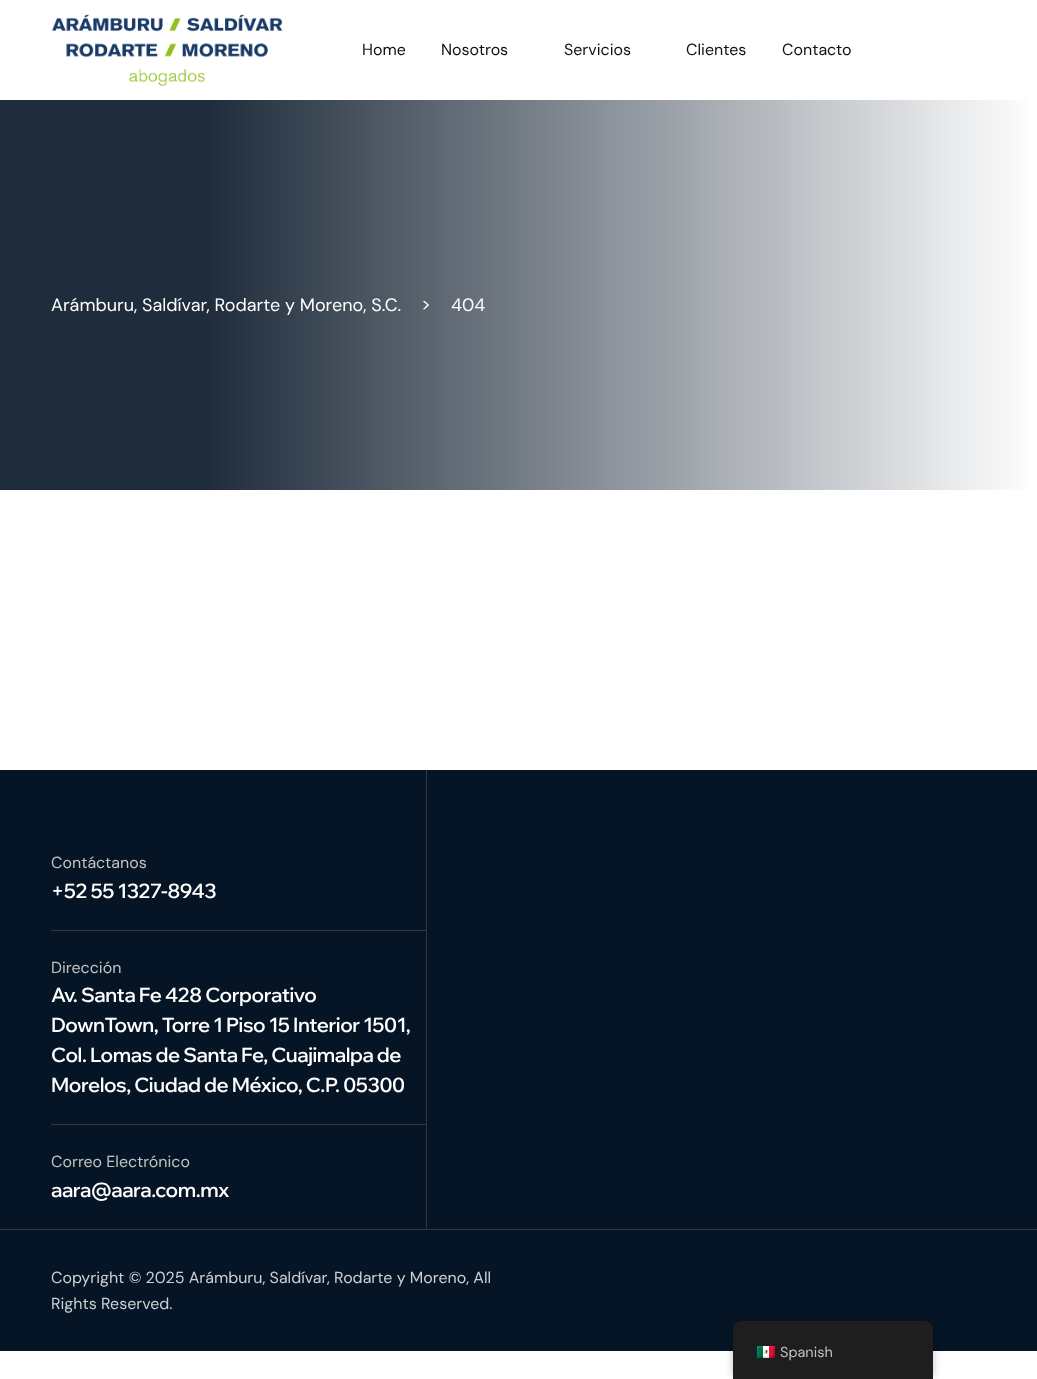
<!DOCTYPE html>
<meta charset="utf-8">
<style>body { margin: 0 } canvas { display: block }</style>
<canvas id="canvas" width="1037" height="1379"></canvas>
<script type="module">
  const canvas = document.getElementById("canvas");
  const g = canvas.getContext("2d");
  g.miterLimit = 4;
  g.fontKerning = "normal";
  function drawText(s, x, y, [font, color]) {
    g.font = font;
    g.fillStyle = color;
    g.fillText(s, x, y);
  }
  function fillBox(x, y, w, h, color) {
    g.fillStyle = color;
    g.fillRect(x, y, w, h);
  }
  async function drawPicture(src, x, y, w, h) {
    const img = new Image();
    img.src = src;
    await img.decode();
    g.drawImage(img, x, y, w, h);
  }
  let gradient;

  const s1 = ["16px DM Sans", "#0F1011"];
  const s2 = ["18px DM Sans", "#FFFFFF"];
  const s3 = ["16px DM Sans", "#C2C2C2"];
  const s4 = ["600 20px Wix Madefor Display", "#FFFFFF"];
  const s5 = ["16px DM Sans", "#CDD0D3"];
  const s6 = ["14.5px DM Sans", "#C2C2C2"];

  fillBox(0, 0, 1037, 1379, "#FFFFFF");
  await drawPicture("pic1.png", 52, 14, 231, 73);
  drawText("Home", 362, 55, s1);
  drawText("Nosotros", 441, 55, s1);
  drawText("Servicios", 564, 55, s1);
  drawText("Clientes", 686, 55, s1);
  drawText("Contacto", 782, 55, s1);
  gradient = g.createLinearGradient(1037, 295, 0, 295);
  gradient.addColorStop(0, "#FFFFFF");
  gradient.addColorStop(0.8, "#1F2C3B");
  g.fillStyle = gradient;
  g.fillRect(0, 100, 1028, 390);
  drawText("Arámburu, Saldívar, Rodarte y Moreno, S.C.", 51, 311, s2);
  drawText(">", 421, 310, s2);
  drawText("404", 451, 311, s2);
  fillBox(0, 770, 1037, 581, "#061525");
  fillBox(426, 770, 1, 459, "#2B3846");
  drawText("Contáctanos", 51, 868, s3);
  g.letterSpacing = "-0.4px";
  drawText("+52 55 1327-8943", 51, 898, s4);
  fillBox(51, 930, 375, 1, "#2B3846");
  g.letterSpacing = "0px";
  drawText("Dirección", 51, 973, s3);
  g.letterSpacing = "-0.4px";
  drawText("Av. Santa Fe 428 Corporativo", 51, 1002, s4);
  drawText("DownTown, Torre 1 Piso 15 Interior 1501,", 51, 1032, s4);
  drawText("Col. Lomas de Santa Fe, Cuajimalpa de", 51, 1062, s4);
  drawText("Morelos, Ciudad de México, C.P. 05300", 51, 1092, s4);
  fillBox(51, 1124, 375, 1, "#2B3846");
  g.letterSpacing = "0px";
  drawText("Correo Electrónico", 51, 1167, s3);
  g.letterSpacing = "-0.4px";
  drawText("aara@aara.com.mx", 51, 1197, s4);
  fillBox(0, 1229, 1037, 1, "#2B3846");
  g.letterSpacing = "0px";
  drawText("Copyright © 2025 Arámburu, Saldívar, Rodarte y Moreno, All", 51, 1283, s5);
  drawText("Rights Reserved.", 51, 1309, s5);
  g.fillStyle = "rgba(0, 0, 0, 0.25)";
  g.filter = "blur(4px)";
  g.beginPath();
  g.roundRect(733, 1321, 200, 58, 8);
  g.fill();
  g.filter = "none";
  g.fillStyle = "#1E1E1E";
  g.beginPath();
  g.roundRect(733, 1321, 200, 58, [8, 8, 0, 0]);
  g.fill();
  await drawPicture("pic2.png", 757, 1346, 18, 12);
  drawText("Spanish", 780, 1357, s6);
</script>
